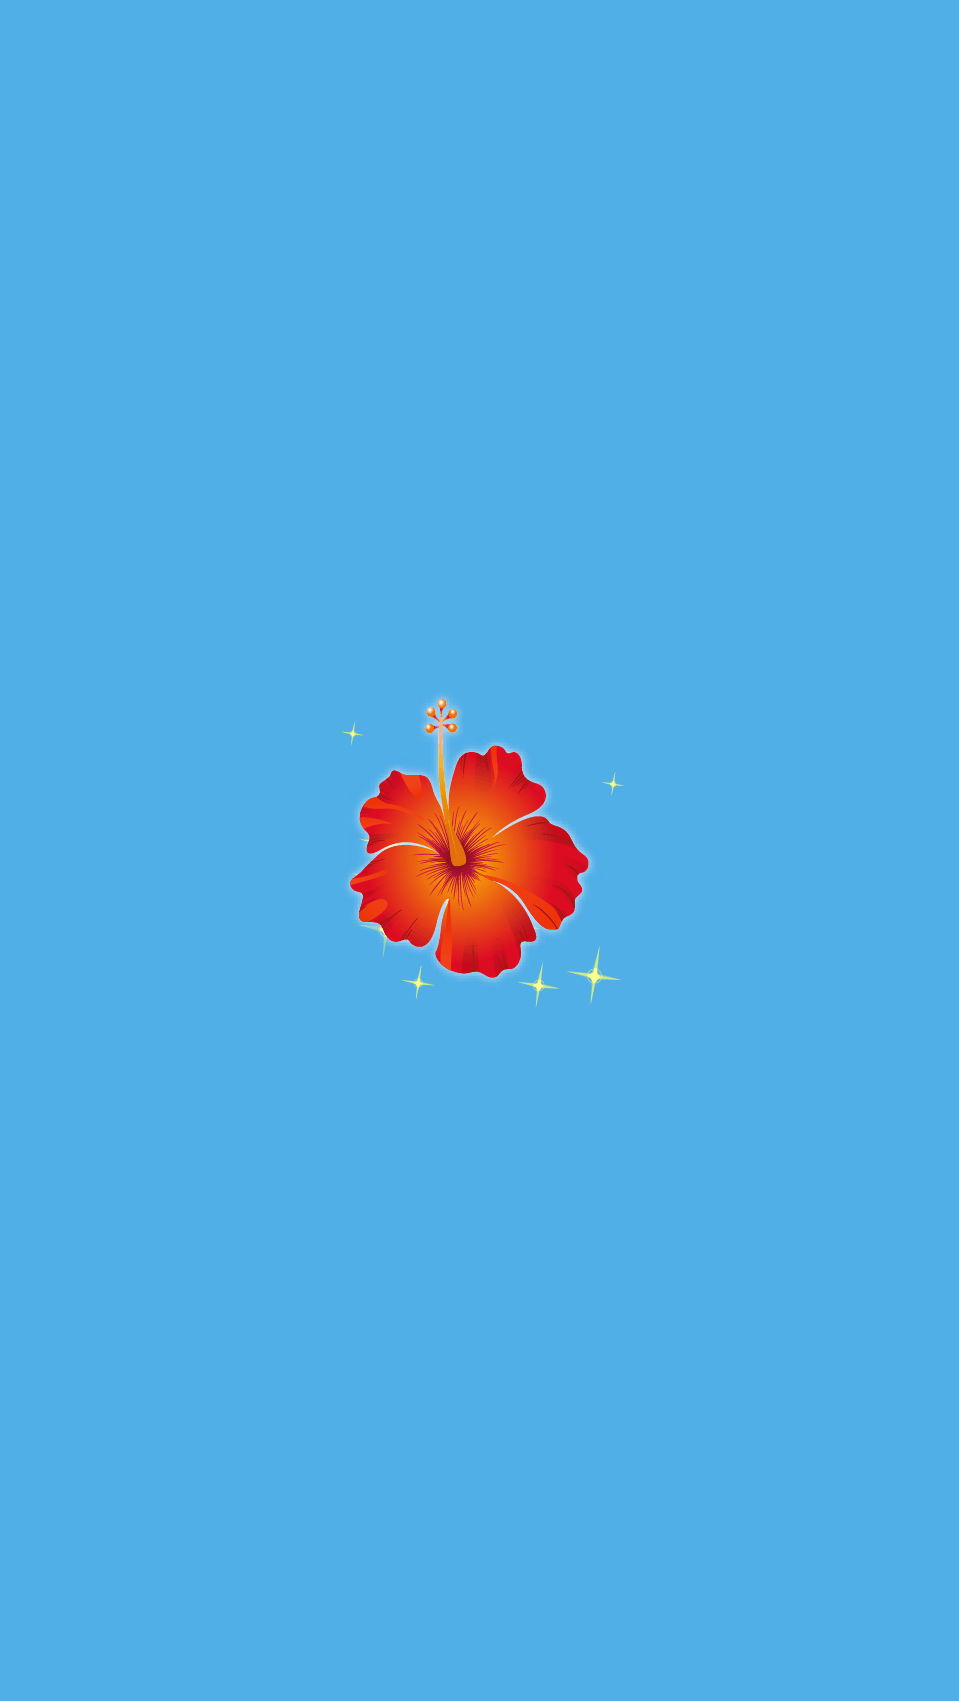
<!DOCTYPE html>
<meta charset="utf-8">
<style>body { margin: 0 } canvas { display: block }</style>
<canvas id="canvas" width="959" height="1701"></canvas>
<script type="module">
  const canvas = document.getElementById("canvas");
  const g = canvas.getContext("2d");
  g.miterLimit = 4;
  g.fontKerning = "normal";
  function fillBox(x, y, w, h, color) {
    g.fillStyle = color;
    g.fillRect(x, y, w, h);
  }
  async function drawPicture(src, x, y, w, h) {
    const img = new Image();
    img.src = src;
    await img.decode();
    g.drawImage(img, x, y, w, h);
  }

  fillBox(0, 0, 959, 1701, "#51AFE7");
  await drawPicture("pic1.png", 341, 692, 283, 316);
</script>
